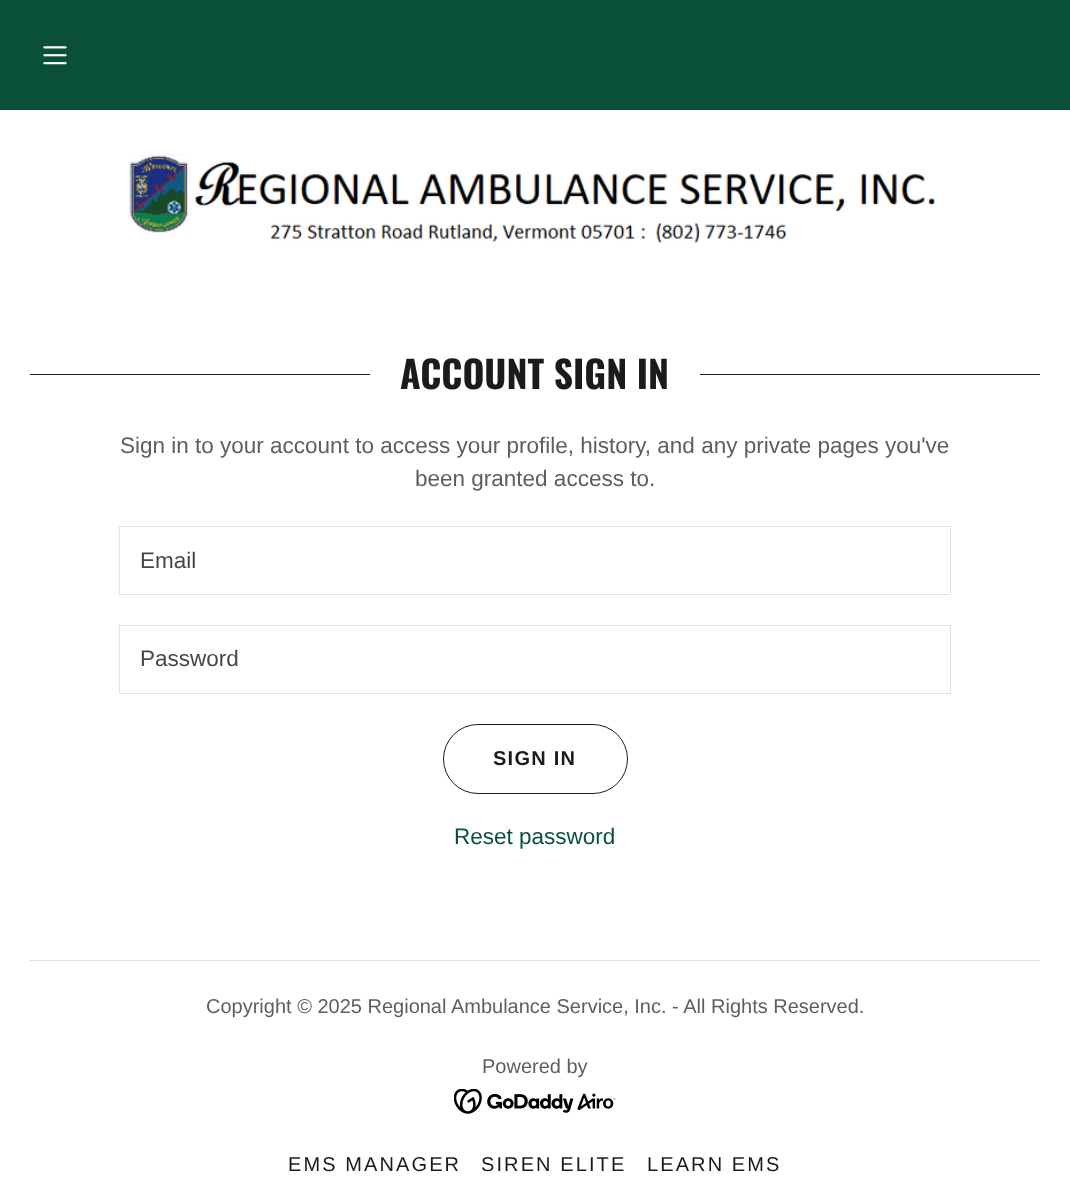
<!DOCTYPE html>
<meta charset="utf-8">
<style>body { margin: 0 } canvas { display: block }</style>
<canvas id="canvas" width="1070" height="1184"></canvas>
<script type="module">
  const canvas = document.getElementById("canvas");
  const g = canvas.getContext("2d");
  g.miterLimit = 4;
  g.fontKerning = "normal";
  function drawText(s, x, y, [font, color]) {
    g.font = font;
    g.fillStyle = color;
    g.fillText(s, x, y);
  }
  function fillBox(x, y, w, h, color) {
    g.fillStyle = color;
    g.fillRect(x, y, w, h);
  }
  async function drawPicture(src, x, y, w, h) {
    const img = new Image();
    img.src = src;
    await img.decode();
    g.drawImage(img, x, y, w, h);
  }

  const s1 = ["bold 37.5px Oswald", "#1B1B1B"];
  const s2 = ["22.5px Liberation Sans", "#5E5E5E"];
  const s3 = ["22.5px Liberation Sans", "#474747"];
  const s4 = ["bold 20px Liberation Sans", "#1B1B1B"];
  const s5 = ["22.5px Liberation Sans", "#0A4F39"];
  const s6 = ["20px Liberation Sans", "#5E5E5E"];
  const s7 = ["20px Liberation Sans", "#1B1B1B"];

  fillBox(0, 0, 1070, 1184, "#FFFFFF");
  fillBox(0, 0, 1070, 110, "#0A4F39");
  await drawPicture("pic1.png", 43, 46, 24, 19);
  await drawPicture("pic2.png", 129, 154, 806, 90);
  fillBox(30, 374, 340, 1, "#1B1B1B");
  drawText("ACCOUNT SIGN IN", 400, 389, s1);
  fillBox(700, 374, 340, 1, "#1B1B1B");
  drawText("Sign in to your account to access your profile, history, and any private pages you've", 120, 453, s2);
  drawText("been granted access to.", 415, 486, s2);
  g.strokeStyle = "#E2E2E2";
  g.strokeRect(119.5, 526.5, 831, 68);
  drawText("Email", 140, 568, s3);
  g.strokeRect(119.5, 625.5, 831, 68);
  drawText("Password", 140, 666, s3);
  g.beginPath();
  g.roundRect(443.5, 724.5, 184, 69, 34.5);
  g.strokeStyle = "#1B1B1B";
  g.stroke();
  g.letterSpacing = "1.25px";
  drawText("SIGN IN", 493, 765, s4);
  g.letterSpacing = "0px";
  drawText("Reset password", 454, 844, s5);
  fillBox(30, 960, 1010, 1, "#E2E2E2");
  drawText("Copyright © 2025 Regional Ambulance Service, Inc. - All Rights Reserved.", 206, 1013, s6);
  drawText("Powered by", 482, 1073, s6);
  await drawPicture("pic3.png", 454, 1089, 162, 25);
  g.letterSpacing = "2.1px";
  drawText("EMS MANAGER", 288, 1171, s7);
  drawText("SIREN ELITE", 481, 1171, s7);
  drawText("LEARN EMS", 647, 1171, s7);
</script>
